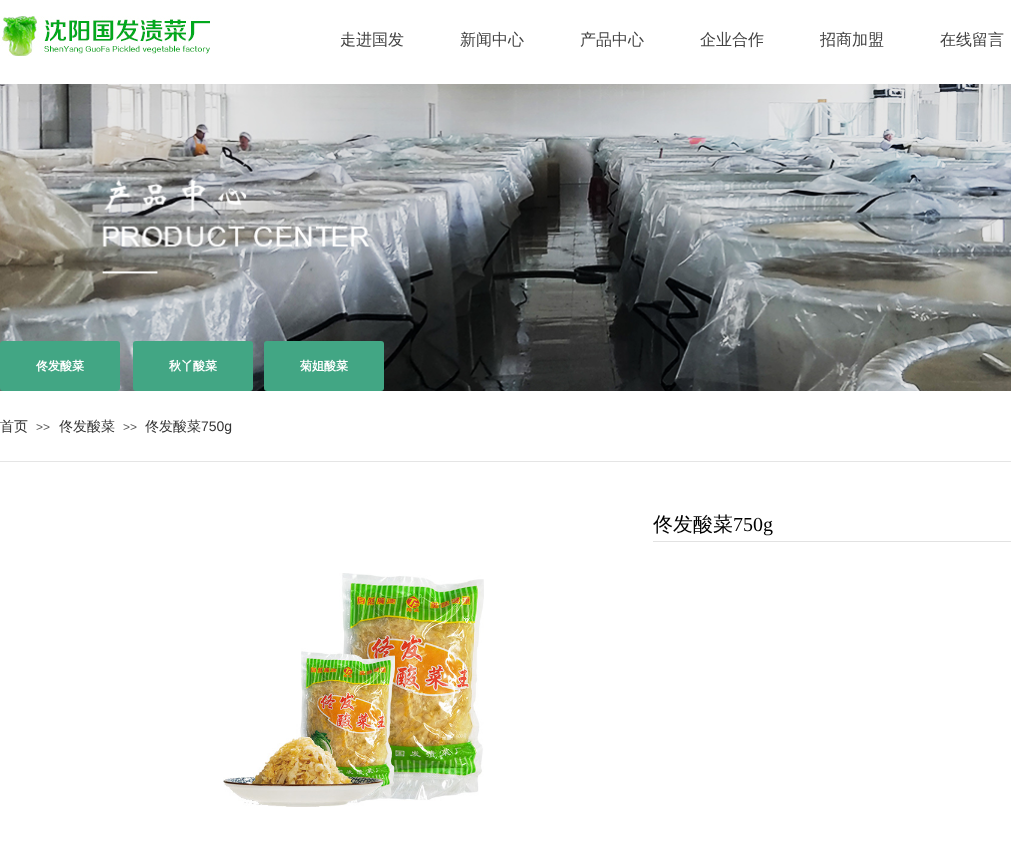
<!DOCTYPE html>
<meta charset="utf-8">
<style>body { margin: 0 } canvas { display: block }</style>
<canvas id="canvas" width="1011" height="842"></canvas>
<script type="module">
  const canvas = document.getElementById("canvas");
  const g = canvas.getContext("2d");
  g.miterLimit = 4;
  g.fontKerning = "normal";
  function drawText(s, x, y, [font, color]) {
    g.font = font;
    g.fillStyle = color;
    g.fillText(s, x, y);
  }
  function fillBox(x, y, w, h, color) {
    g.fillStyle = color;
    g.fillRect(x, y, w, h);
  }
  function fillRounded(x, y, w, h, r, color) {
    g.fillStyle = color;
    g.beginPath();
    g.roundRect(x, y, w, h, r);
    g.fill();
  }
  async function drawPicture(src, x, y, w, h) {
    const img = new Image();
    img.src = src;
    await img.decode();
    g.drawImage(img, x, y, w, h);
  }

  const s1 = ["500 16px WenQuanYi Zen Hei", "#434343"];
  const s2 = ["bold 12px WenQuanYi Zen Hei", "#FFFFFF"];
  const s3 = ["500 14px WenQuanYi Zen Hei", "#333333"];
  const s4 = ["12px Liberation Sans", "#5A5A5A"];
  const s5 = ["14px Liberation Sans", "#333333"];
  const s6 = ["500 20px WenQuanYi Zen Hei", "#000000"];
  const s7 = ["20px Liberation Serif", "#000000"];

  fillBox(0, 0, 1011, 842, "#FFFFFF");
  await drawPicture("pic1.png", 0, 16, 210, 40);
  drawText("走进国发", 340, 45, s1);
  drawText("新闻中心", 460, 45, s1);
  drawText("产品中心", 580, 45, s1);
  drawText("企业合作", 700, 45, s1);
  drawText("招商加盟", 820, 45, s1);
  drawText("在线留言", 940, 45, s1);
  await drawPicture("pic2.png", 0, 84, 1011, 307);
  fillRounded(0, 341, 120, 50, 3, "#42A684");
  drawText("佟发酸菜", 36, 370, s2);
  fillRounded(133, 341, 120, 50, 3, "#42A684");
  drawText("秋丫酸菜", 169, 370, s2);
  fillRounded(264, 341, 120, 50, 3, "#42A684");
  drawText("菊姐酸菜", 300, 370, s2);
  drawText("首页", 0, 431, s3);
  drawText(">>", 36, 431, s4);
  drawText("佟发酸菜", 59, 431, s3);
  drawText(">>", 123, 431, s4);
  drawText("佟发酸菜", 145, 431, s3);
  drawText("750g", 201, 431, s5);
  fillBox(0, 461, 1011, 1, "#E5E5E5");
  fillBox(653, 541, 358, 1, "#E2E2E2");
  drawText("佟发酸菜", 653, 531, s6);
  drawText("750g", 733, 531, s7);
  await drawPicture("pic3.png", 223, 573, 261, 234);
</script>
